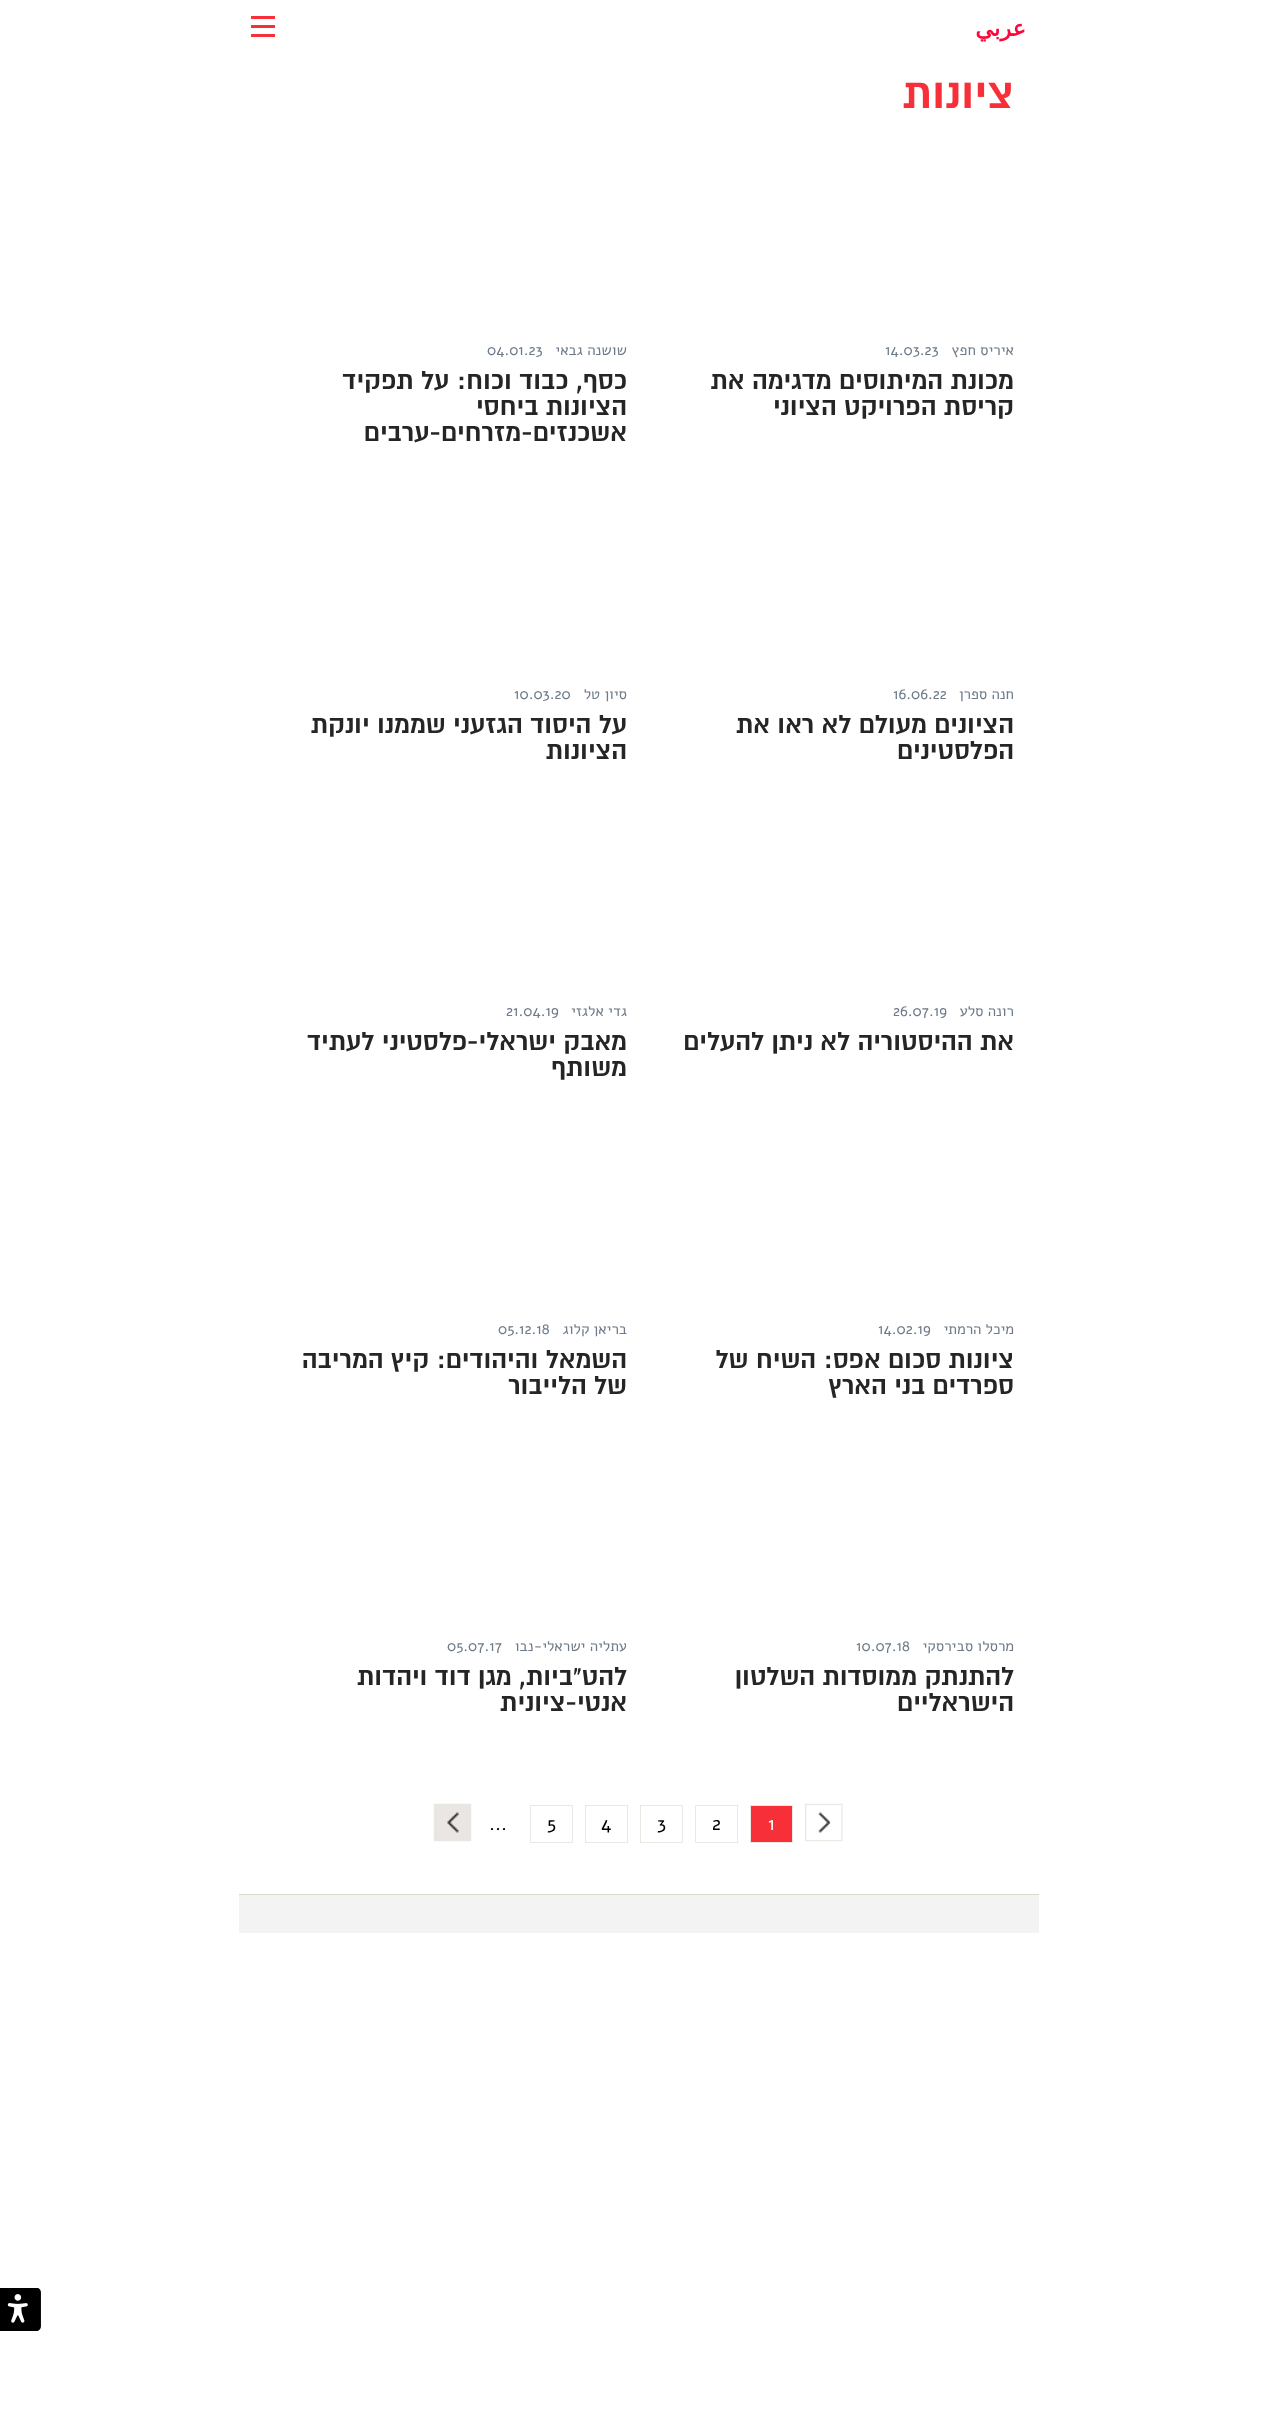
<!DOCTYPE html>
<meta charset="utf-8">
<style>body { margin: 0 } canvas { display: block }</style>
<canvas id="canvas" width="1276" height="2423"></canvas>
<script type="module">
  const canvas = document.getElementById("canvas");
  const g = canvas.getContext("2d");
  g.miterLimit = 4;
  g.fontKerning = "normal";
  function drawText(s, x, y, [font, color]) {
    g.font = font;
    g.fillStyle = color;
    g.fillText(s, x, y);
  }
  function fillBox(x, y, w, h, color) {
    g.fillStyle = color;
    g.fillRect(x, y, w, h);
  }
  async function drawPicture(src, x, y, w, h) {
    const img = new Image();
    img.src = src;
    await img.decode();
    g.drawImage(img, x, y, w, h);
  }

  const s1 = ["bold 22.5px DejaVu Sans", "#FF0639"];
  const s2 = ["42.5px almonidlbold", "#F72F39"];
  const s3 = ["15px Alef", "#6C7A89"];
  const s4 = ["25px almonidlbold", "#252525"];
  const s5 = ["19px Alef", "#FFFFFF"];
  const s6 = ["19px Alef", "#000000"];

  fillBox(0, 0, 1276, 2423, "#FFFFFF");
  g.direction = "rtl";
  drawText("عربي", 1026, 36, s1);
  fillBox(251, 16, 24, 3, "#F72F39");
  fillBox(251, 25, 24, 3, "#F72F39");
  fillBox(251, 34, 24, 3, "#F72F39");
  drawText("ציונות", 1014, 108, s2);
  drawText("איריס חפץ", 1014, 355, s3);
  g.direction = "ltr";
  drawText("14.03.23", 885, 355, s3);
  g.direction = "rtl";
  drawText("מכונת המיתוסים מדגימה את", 1014, 389, s4);
  drawText("קריסת הפרויקט הציוני", 1014, 415, s4);
  drawText("שושנה גבאי", 627, 355, s3);
  g.direction = "ltr";
  drawText("04.01.23", 487, 355, s3);
  g.direction = "rtl";
  drawText("כסף, כבוד וכוח: על תפקיד", 627, 389, s4);
  drawText("הציונות ביחסי", 627, 415, s4);
  drawText("אשכנזים-מזרחים-ערבים", 627, 441, s4);
  drawText("חנה ספרן", 1014, 699, s3);
  g.direction = "ltr";
  drawText("16.06.22", 893, 699, s3);
  g.direction = "rtl";
  drawText("הציונים מעולם לא ראו את", 1014, 733, s4);
  drawText("הפלסטינים", 1014, 759, s4);
  drawText("סיון טל", 627, 699, s3);
  g.direction = "ltr";
  drawText("10.03.20", 514, 699, s3);
  g.direction = "rtl";
  drawText("על היסוד הגזעני שממנו יונקת", 627, 733, s4);
  drawText("הציונות", 627, 759, s4);
  drawText("רונה סלע", 1014, 1016, s3);
  g.direction = "ltr";
  drawText("26.07.19", 893, 1016, s3);
  g.direction = "rtl";
  drawText("את ההיסטוריה לא ניתן להעלים", 1014, 1050, s4);
  drawText("גדי אלגזי", 627, 1016, s3);
  g.direction = "ltr";
  drawText("21.04.19", 506, 1016, s3);
  g.direction = "rtl";
  drawText("מאבק ישראלי-פלסטיני לעתיד", 627, 1050, s4);
  drawText("משותף", 627, 1076, s4);
  drawText("מיכל הרמתי", 1014, 1334, s3);
  g.direction = "ltr";
  drawText("14.02.19", 878, 1334, s3);
  g.direction = "rtl";
  drawText("ציונות סכום אפס: השיח של", 1014, 1368, s4);
  drawText("ספרדים בני הארץ", 1014, 1394, s4);
  drawText("בריאן קלוג", 627, 1334, s3);
  g.direction = "ltr";
  drawText("05.12.18", 498, 1334, s3);
  g.direction = "rtl";
  drawText("השמאל והיהודים: קיץ המריבה", 627, 1368, s4);
  drawText("של הלייבור", 627, 1394, s4);
  drawText("מרסלו סבירסקי", 1014, 1651, s3);
  g.direction = "ltr";
  drawText("10.07.18", 856, 1651, s3);
  g.direction = "rtl";
  drawText("להתנתק ממוסדות השלטון", 1014, 1685, s4);
  drawText("הישראליים", 1014, 1711, s4);
  g.save();
  g.beginPath();
  g.rect(263, 1436, 363, 280);
  g.clip();
  drawText("עתליה ישראלי-נבו", 627, 1651, s3);
  g.restore();
  g.direction = "ltr";
  drawText("05.07.17", 447, 1651, s3);
  g.direction = "rtl";
  drawText("להט\"ביות, מגן דוד ויהדות", 627, 1685, s4);
  drawText("אנטי-ציונית", 627, 1711, s4);
  await drawPicture("pic1.png", 805, 1803, 38, 39);
  g.fillStyle = "#F72F39";
  g.beginPath();
  g.rect(750.5, 1805.5, 42, 37);
  g.fill();
  g.strokeStyle = "#E9E8E2";
  g.stroke();
  g.direction = "ltr";
  drawText("1", 768, 1830, s5);
  g.strokeRect(695.5, 1805.5, 42, 37);
  drawText("2", 712, 1830, s6);
  g.strokeRect(640.5, 1805.5, 42, 37);
  drawText("3", 657, 1830, s6);
  g.strokeRect(585.5, 1805.5, 42, 37);
  drawText("4", 601, 1830, s6);
  g.strokeRect(530.5, 1805.5, 42, 37);
  drawText("5", 547, 1830, s6);
  drawText("...", 489, 1830, s6);
  await drawPicture("pic2.png", 433, 1803, 39, 39);
  fillBox(239, 1895, 800, 38, "#F3F3F3");
  fillBox(239, 1894, 800, 1, "#DAD9CF");
  await drawPicture("pic3.png", 0, 2288, 41, 43);
</script>
